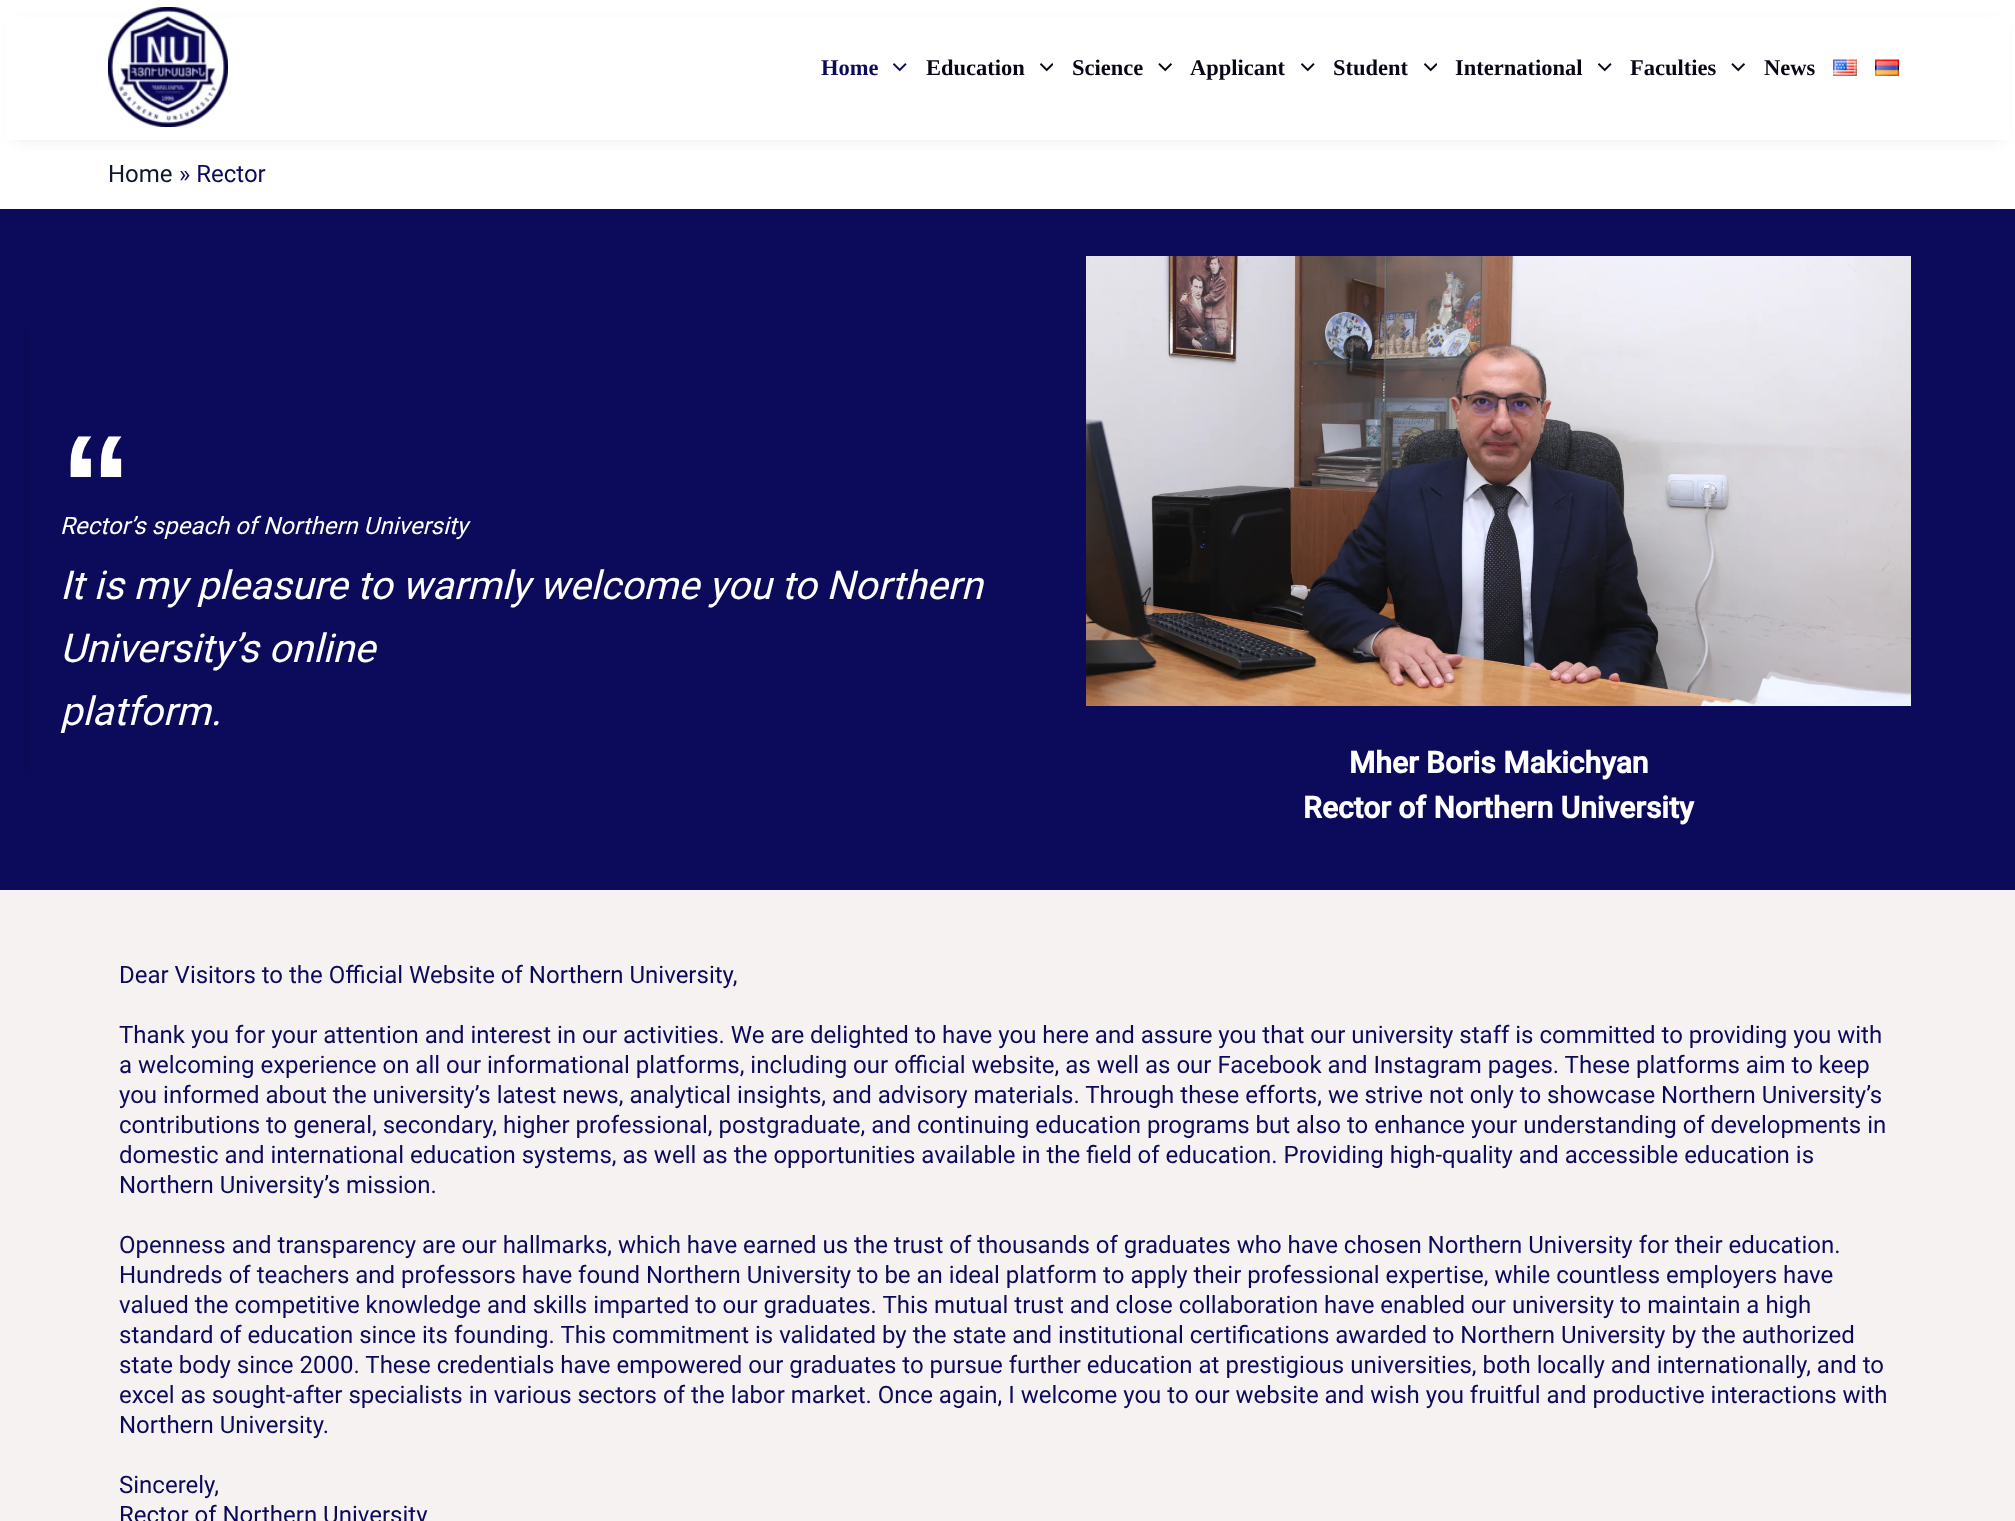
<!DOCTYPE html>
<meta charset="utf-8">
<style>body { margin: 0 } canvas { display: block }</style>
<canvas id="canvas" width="2015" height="1521"></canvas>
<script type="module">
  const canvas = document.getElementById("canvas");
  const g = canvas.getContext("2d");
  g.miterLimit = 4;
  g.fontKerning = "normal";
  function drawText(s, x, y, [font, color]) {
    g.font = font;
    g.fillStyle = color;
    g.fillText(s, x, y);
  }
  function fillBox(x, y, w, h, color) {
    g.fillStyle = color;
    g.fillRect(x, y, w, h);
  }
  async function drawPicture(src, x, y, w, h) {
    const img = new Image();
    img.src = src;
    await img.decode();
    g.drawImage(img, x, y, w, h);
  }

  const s1 = ["bold 22.5px Liberation Serif", "#0C0A5A"];
  const s2 = ["bold 22.5px Liberation Serif", "#070614"];
  const s3 = ["24px Roboto", "#0F172A"];
  const s4 = ["24px Roboto", "#0C0A5A"];
  const s5 = ["italic 24px Roboto", "#FFFFFF"];
  const s6 = ["italic 39.6px Roboto", "#FFFFFF"];
  const s7 = ["bold 30px Roboto", "#FFFFFF"];

  fillBox(0, 0, 2015, 1521, "#FFFFFF");
  g.fillStyle = "rgba(33, 35, 38, 0.1)";
  g.filter = "blur(7.5px)";
  g.beginPath();
  g.rect(15, 26, 1986, 114);
  g.fill();
  g.filter = "none";
  fillBox(6, 17, 2004, 123, "#FFFFFF");
  await drawPicture("pic1.png", 108, 7, 120, 120);
  drawText("Home", 821, 75, s1);
  await drawPicture("pic2.png", 893, 63, 14, 9);
  drawText("Education", 926, 75, s2);
  await drawPicture("pic3.png", 1040, 63, 13, 9);
  drawText("Science", 1072, 75, s2);
  await drawPicture("pic4.png", 1158, 63, 14, 9);
  drawText("Applicant", 1190, 75, s2);
  await drawPicture("pic5.png", 1301, 63, 14, 9);
  drawText("Student", 1333, 75, s2);
  await drawPicture("pic3.png", 1424, 63, 13, 9);
  drawText("International", 1455, 75, s2);
  await drawPicture("pic5.png", 1598, 63, 14, 9);
  drawText("Faculties", 1630, 75, s2);
  await drawPicture("pic4.png", 1731, 63, 14, 9);
  drawText("News", 1764, 75, s2);
  await drawPicture("pic6.png", 1833, 59, 24, 17);
  await drawPicture("pic7.png", 1875, 59, 24, 17);
  drawText("Home", 108, 182, s3);
  drawText("» Rector", 179, 182, s4);
  fillBox(0, 209, 2015, 681, "#0C0A5A");
  fillBox(23, 326, 7, 448, "#0B0A56");
  g.font = "bold 144px Liberation Sans";
  g.fillStyle = "#FFFFFF";
  g.save();
  g.translate(132, 378);
  g.rotate(180 * Math.PI / 180);
  g.fillText("”", 0, 0);
  g.restore();
  drawText("Rector’s speach of Northern University", 60, 534, s5);
  drawText("It is my pleasure to warmly welcome you to Northern", 60, 599, s6);
  drawText("University’s online", 60, 662, s6);
  drawText("platform.", 60, 725, s6);
  await drawPicture("pic8.png", 1086, 256, 825, 450);
  drawText("Mher Boris Makichyan", 1349, 773, s7);
  drawText("Rector of Northern University", 1303, 818, s7);
  fillBox(0, 890, 2015, 631, "#F7F2F2");
  drawText("Dear Visitors to the Official Website of Northern University,", 119, 983, s4);
  drawText("Thank you for your attention and interest in our activities. We are delighted to have you here and assure you that our university staff is committed to providing you with", 119, 1043, s4);
  drawText("a welcoming experience on all our informational platforms, including our official website, as well as our Facebook and Instagram pages. These platforms aim to keep", 119, 1073, s4);
  drawText("you informed about the university’s latest news, analytical insights, and advisory materials. Through these efforts, we strive not only to showcase Northern University’s", 119, 1103, s4);
  drawText("contributions to general, secondary, higher professional, postgraduate, and continuing education programs but also to enhance your understanding of developments in", 119, 1133, s4);
  drawText("domestic and international education systems, as well as the opportunities available in the field of education. Providing high-quality and accessible education is", 119, 1163, s4);
  drawText("Northern University’s mission.", 119, 1193, s4);
  drawText("Openness and transparency are our hallmarks, which have earned us the trust of thousands of graduates who have chosen Northern University for their education.", 119, 1253, s4);
  drawText("Hundreds of teachers and professors have found Northern University to be an ideal platform to apply their professional expertise, while countless employers have", 119, 1283, s4);
  drawText("valued the competitive knowledge and skills imparted to our graduates. This mutual trust and close collaboration have enabled our university to maintain a high", 119, 1313, s4);
  drawText("standard of education since its founding. This commitment is validated by the state and institutional certifications awarded to Northern University by the authorized", 119, 1343, s4);
  drawText("state body since 2000. These credentials have empowered our graduates to pursue further education at prestigious universities, both locally and internationally, and to", 119, 1373, s4);
  drawText("excel as sought-after specialists in various sectors of the labor market. Once again, I welcome you to our website and wish you fruitful and productive interactions with", 119, 1403, s4);
  drawText("Northern University.", 119, 1433, s4);
  drawText("Sincerely,", 119, 1493, s4);
  drawText("Rector of Northern University", 119, 1523, s4);
</script>
